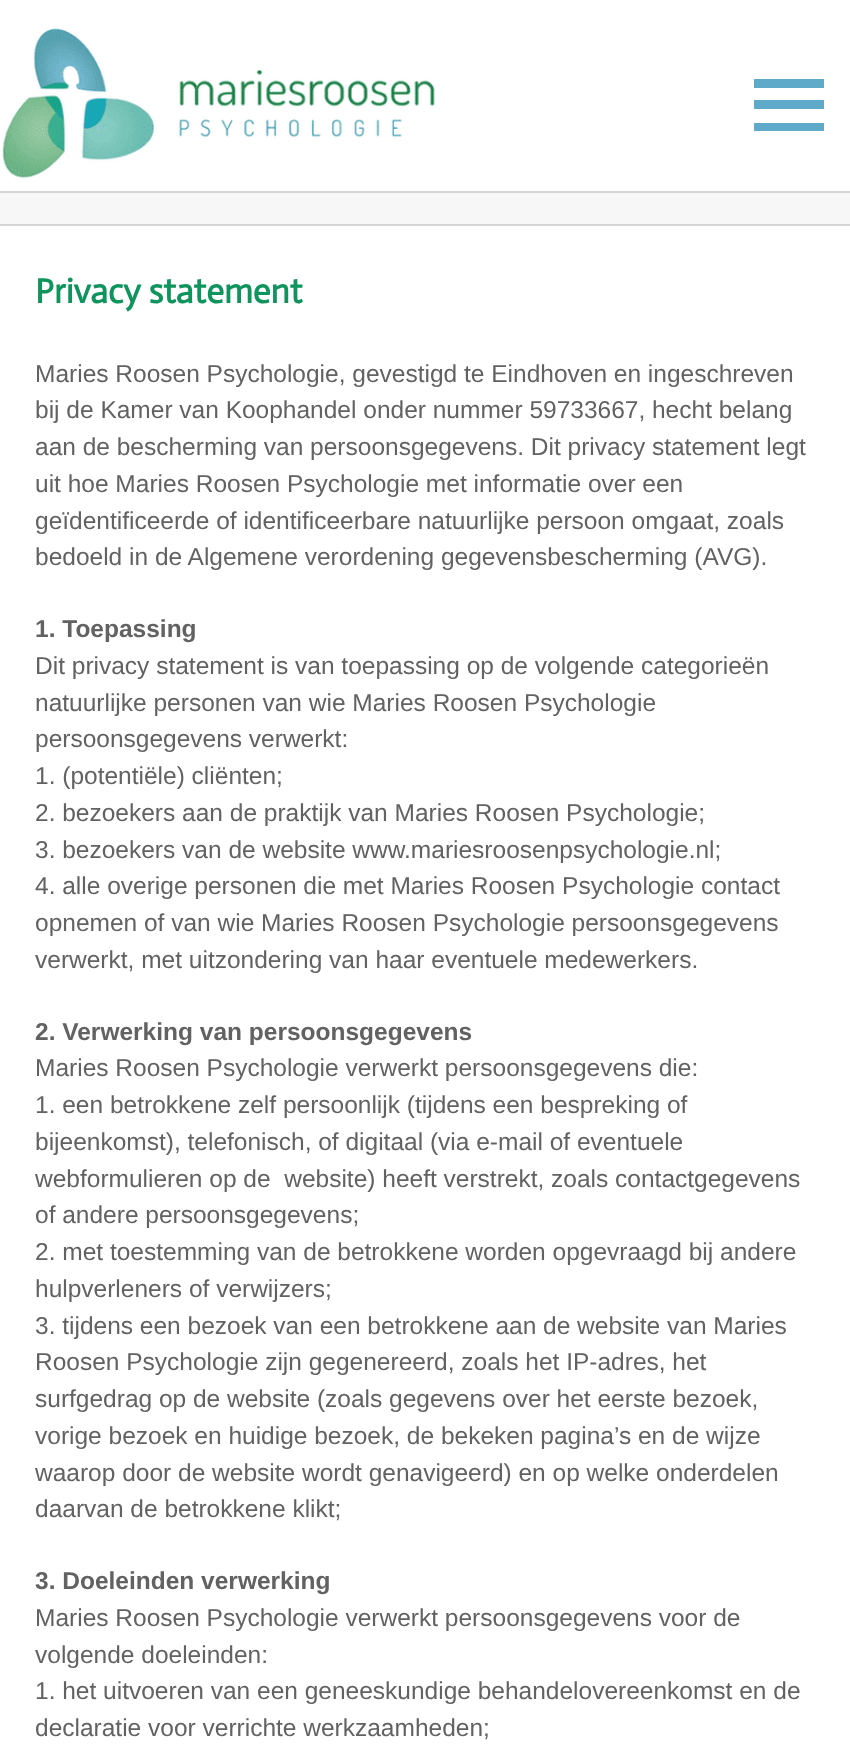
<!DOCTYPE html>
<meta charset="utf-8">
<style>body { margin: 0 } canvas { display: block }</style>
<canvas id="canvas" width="850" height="1750"></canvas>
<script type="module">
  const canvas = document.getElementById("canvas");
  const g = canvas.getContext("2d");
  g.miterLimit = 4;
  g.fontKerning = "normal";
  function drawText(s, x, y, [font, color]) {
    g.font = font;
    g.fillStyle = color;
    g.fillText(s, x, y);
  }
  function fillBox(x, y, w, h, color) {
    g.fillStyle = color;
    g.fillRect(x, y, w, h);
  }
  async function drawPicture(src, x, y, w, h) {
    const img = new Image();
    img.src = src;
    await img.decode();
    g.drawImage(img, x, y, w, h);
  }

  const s1 = ["bold 35px Actor", "#10945D"];
  const s2 = ["24.5px Liberation Sans", "#626262"];
  const s3 = ["bold 24.5px Liberation Sans", "#626262"];

  fillBox(0, 0, 850, 1750, "#FFFFFF");
  await drawPicture("pic1.png", 2, 28, 433, 151);
  fillBox(754, 79, 70, 9, "#5EAAC8");
  fillBox(754, 100, 70, 9, "#5EAAC8");
  fillBox(754, 123, 70, 8, "#5EAAC8");
  fillBox(0, 193, 850, 31, "#F7F7F7");
  fillBox(0, 191, 850, 2, "#D4D4D4");
  fillBox(0, 224, 850, 2, "#D4D4D4");
  drawText("Privacy statement", 35, 303, s1);
  drawText("Maries Roosen Psychologie, gevestigd te Eindhoven en ingeschreven", 35, 382, s2);
  drawText("bij de Kamer van Koophandel onder nummer 59733667, hecht belang", 35, 418, s2);
  drawText("aan de bescherming van persoonsgegevens. Dit privacy statement legt", 35, 455, s2);
  drawText("uit hoe Maries Roosen Psychologie met informatie over een", 35, 492, s2);
  drawText("geïdentificeerde of identificeerbare natuurlijke persoon omgaat, zoals", 35, 529, s2);
  drawText("bedoeld in de Algemene verordening gegevensbescherming (AVG).", 35, 565, s2);
  drawText("1. Toepassing", 35, 637, s3);
  drawText("Dit privacy statement is van toepassing op de volgende categorieën", 35, 674, s2);
  drawText("natuurlijke personen van wie Maries Roosen Psychologie", 35, 711, s2);
  drawText("persoonsgegevens verwerkt:", 35, 747, s2);
  drawText("1. (potentiële) cliënten;", 35, 784, s2);
  drawText("2. bezoekers aan de praktijk van Maries Roosen Psychologie;", 35, 821, s2);
  drawText("3. bezoekers van de website www.mariesroosenpsychologie.nl;", 35, 858, s2);
  drawText("4. alle overige personen die met Maries Roosen Psychologie contact", 35, 894, s2);
  drawText("opnemen of van wie Maries Roosen Psychologie persoonsgegevens", 35, 931, s2);
  drawText("verwerkt, met uitzondering van haar eventuele medewerkers.", 35, 968, s2);
  drawText("2. Verwerking van persoonsgegevens", 35, 1040, s3);
  drawText("Maries Roosen Psychologie verwerkt persoonsgegevens die:", 35, 1076, s2);
  drawText("1. een betrokkene zelf persoonlijk (tijdens een bespreking of", 35, 1113, s2);
  drawText("bijeenkomst), telefonisch, of digitaal (via e-mail of eventuele", 35, 1150, s2);
  drawText("webformulieren op de  website) heeft verstrekt, zoals contactgegevens", 35, 1187, s2);
  drawText("of andere persoonsgegevens;", 35, 1223, s2);
  drawText("2. met toestemming van de betrokkene worden opgevraagd bij andere", 35, 1260, s2);
  drawText("hulpverleners of verwijzers;", 35, 1297, s2);
  drawText("3. tijdens een bezoek van een betrokkene aan de website van Maries", 35, 1334, s2);
  drawText("Roosen Psychologie zijn gegenereerd, zoals het IP-adres, het", 35, 1370, s2);
  drawText("surfgedrag op de website (zoals gegevens over het eerste bezoek,", 35, 1407, s2);
  drawText("vorige bezoek en huidige bezoek, de bekeken pagina’s en de wijze", 35, 1444, s2);
  drawText("waarop door de website wordt genavigeerd) en op welke onderdelen", 35, 1481, s2);
  drawText("daarvan de betrokkene klikt;", 35, 1517, s2);
  drawText("3. Doeleinden verwerking", 35, 1589, s3);
  drawText("Maries Roosen Psychologie verwerkt persoonsgegevens voor de", 35, 1626, s2);
  drawText("volgende doeleinden:", 35, 1663, s2);
  drawText("1. het uitvoeren van een geneeskundige behandelovereenkomst en de", 35, 1699, s2);
  drawText("declaratie voor verrichte werkzaamheden;", 35, 1736, s2);
</script>
